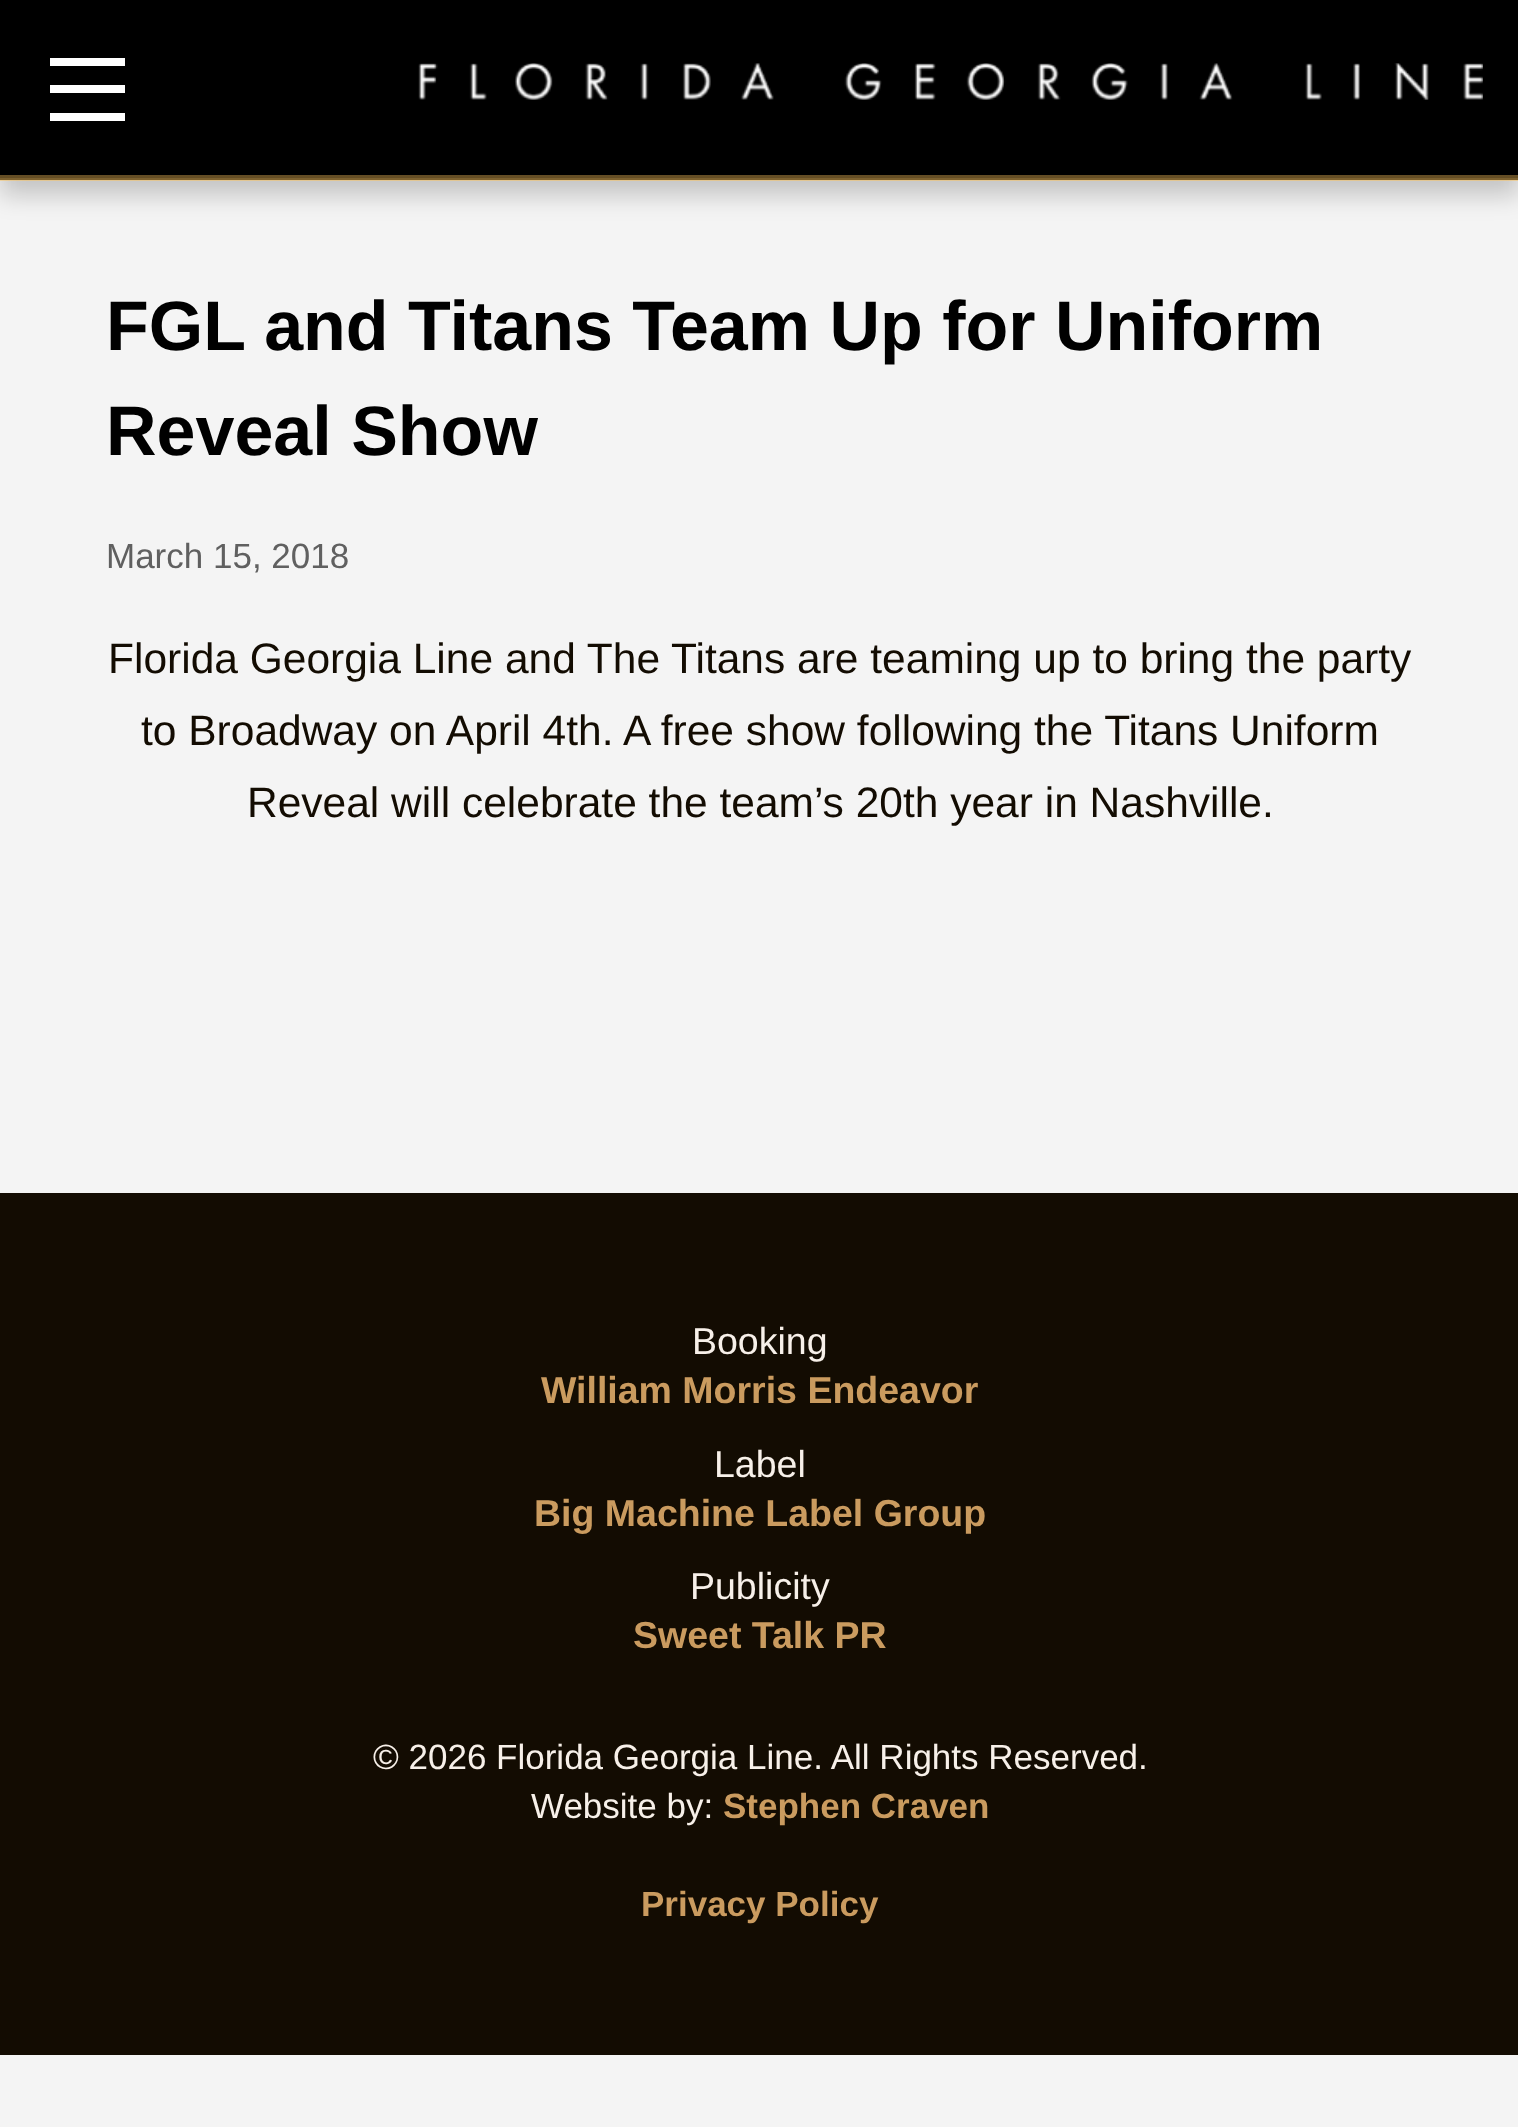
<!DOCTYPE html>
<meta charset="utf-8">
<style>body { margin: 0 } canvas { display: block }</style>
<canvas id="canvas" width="1518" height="2127"></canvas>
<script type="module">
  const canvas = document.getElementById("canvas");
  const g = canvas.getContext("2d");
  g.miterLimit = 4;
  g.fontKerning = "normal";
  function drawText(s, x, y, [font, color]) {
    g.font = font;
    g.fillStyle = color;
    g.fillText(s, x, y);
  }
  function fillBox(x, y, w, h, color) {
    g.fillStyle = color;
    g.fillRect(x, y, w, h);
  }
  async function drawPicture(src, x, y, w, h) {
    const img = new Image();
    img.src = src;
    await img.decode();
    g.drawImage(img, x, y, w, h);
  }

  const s1 = ["bold 70px Liberation Sans", "#000000"];
  const s2 = ["35px Liberation Sans", "#606060"];
  const s3 = ["42.5px Liberation Sans", "#130C02"];
  const s4 = ["37.5px Liberation Sans", "#F7F0E9"];
  const s5 = ["bold 37.5px Liberation Sans", "#CA9B5F"];
  const s6 = ["35px Liberation Sans", "#F7F0E9"];
  const s7 = ["bold 35px Liberation Sans", "#CA9B5F"];

  fillBox(0, 0, 1518, 2127, "#F4F4F4");
  g.fillStyle = "rgba(0, 0, 0, 0.2)";
  g.filter = "blur(12.5px)";
  g.beginPath();
  g.rect(0, 15, 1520, 180);
  g.fill();
  g.filter = "none";
  fillBox(0, 0, 1518, 180, "#000000");
  fillBox(0, 178, 1518, 3, "rgba(252, 195, 93, 0.5)");
  fillBox(50, 58, 75, 8, "#FFFFFF");
  fillBox(50, 85, 75, 8, "#FFFFFF");
  fillBox(50, 113, 75, 8, "#FFFFFF");
  await drawPicture("pic1.png", 418, 63, 1065, 37);
  fillBox(0, 175, 1518, 3, "#654E25");
  drawText("FGL and Titans Team Up for Uniform", 106, 350, s1);
  drawText("Reveal Show", 106, 455, s1);
  drawText("March 15, 2018", 106, 568, s2);
  drawText("Florida Georgia Line and The Titans are teaming up to bring the party", 108, 673, s3);
  drawText("to Broadway on April 4th. A free show following the Titans Uniform", 141, 745, s3);
  drawText("Reveal will celebrate the team’s 20th year in Nashville.", 247, 817, s3);
  fillBox(0, 1193, 1518, 862, "#130C02");
  drawText("Booking", 692, 1354, s4);
  drawText("William Morris Endeavor", 541, 1403, s5);
  drawText("Label", 714, 1477, s4);
  drawText("Big Machine Label Group", 534, 1526, s5);
  drawText("Publicity", 690, 1599, s4);
  drawText("Sweet Talk PR", 633, 1648, s5);
  drawText("© 2026 Florida Georgia Line. All Rights Reserved.", 373, 1769, s6);
  drawText("Website by:", 531, 1818, s6);
  drawText("Stephen Craven", 723, 1818, s7);
  drawText("Privacy Policy", 641, 1916, s7);
</script>
